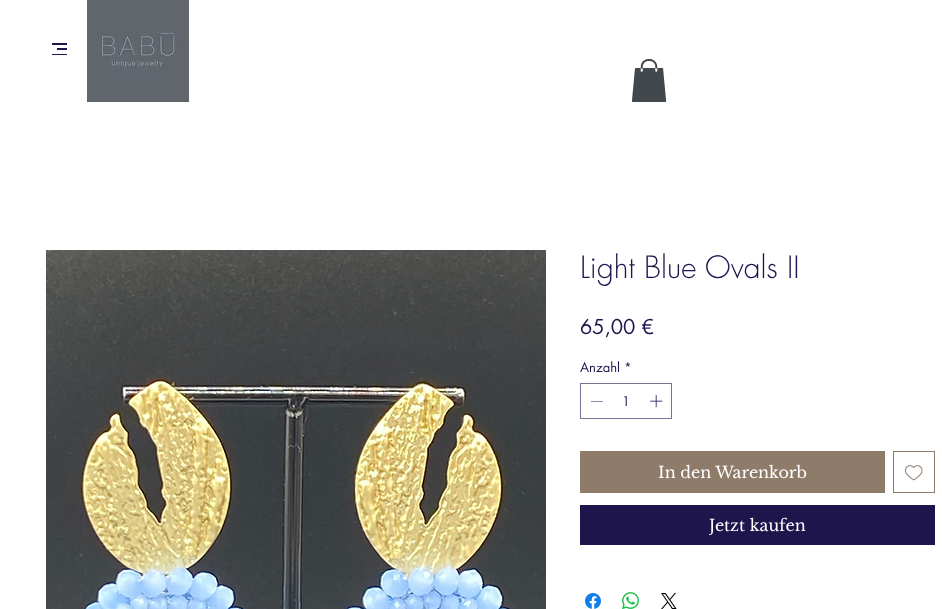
<!DOCTYPE html>
<meta charset="utf-8">
<style>body { margin: 0 } canvas { display: block }</style>
<canvas id="canvas" width="942" height="609"></canvas>
<script type="module">
  const canvas = document.getElementById("canvas");
  const g = canvas.getContext("2d");
  g.miterLimit = 4;
  g.fontKerning = "normal";
  function drawText(s, x, y, [font, color]) {
    g.font = font;
    g.fillStyle = color;
    g.fillText(s, x, y);
  }
  function fillBox(x, y, w, h, color) {
    g.fillStyle = color;
    g.fillRect(x, y, w, h);
  }
  async function drawPicture(src, x, y, w, h) {
    const img = new Image();
    img.src = src;
    await img.decode();
    g.drawImage(img, x, y, w, h);
  }

  const s1 = ["300 30px futura", "#1E154D"];
  const s2 = ["20px futura", "#1E154D"];
  const s3 = ["13px futura", "#1E154D"];
  const s4 = ["16px Libre Baskerville", "#FFFFFF"];

  fillBox(0, 0, 942, 609, "#FFFFFF");
  fillBox(52, 43, 15, 2, "#1E154D");
  fillBox(57, 48, 10, 2, "#1E154D");
  fillBox(52, 54, 15, 1, "#1E154D");
  await drawPicture("pic1.png", 87, 0, 102, 102);
  await drawPicture("pic2.png", 631, 59, 36, 43);
  await drawPicture("pic3.png", 46, 250, 500, 359);
  drawText("Light Blue Ovals II", 580, 278, s1);
  drawText("65,00 €", 580, 334, s2);
  drawText("Anzahl *", 580, 372, s3);
  g.strokeStyle = "#787394";
  g.strokeRect(580.5, 383.5, 91, 35);
  g.beginPath();
  g.moveTo(603, 401);
  g.lineTo(603, 401.5);
  g.lineTo(591, 401.5);
  g.lineTo(591, 401);
  g.closePath();
  g.fill("evenodd");
  drawText("1", 622, 406, s3);
  await drawPicture("pic4.png", 650, 395, 13, 13);
  fillBox(580, 451, 305, 42, "#8F7B6A");
  drawText("In den Warenkorb", 658, 478, s4);
  g.strokeStyle = "#8F7B6A";
  g.strokeRect(893.5, 451.5, 41, 41);
  await drawPicture("pic5.png", 904, 465, 19, 16);
  fillBox(580, 505, 355, 40, "#1E154D");
  g.save();
  g.beginPath();
  g.rect(709, 515, 97, 20);
  g.clip();
  drawText("Jetzt kaufen", 709, 531, s4);
  g.restore();
  await drawPicture("pic6.png", 585, 593, 16, 16);
  await drawPicture("pic7.png", 622, 592, 17, 17);
  await drawPicture("pic8.png", 661, 593, 16, 16);
</script>
